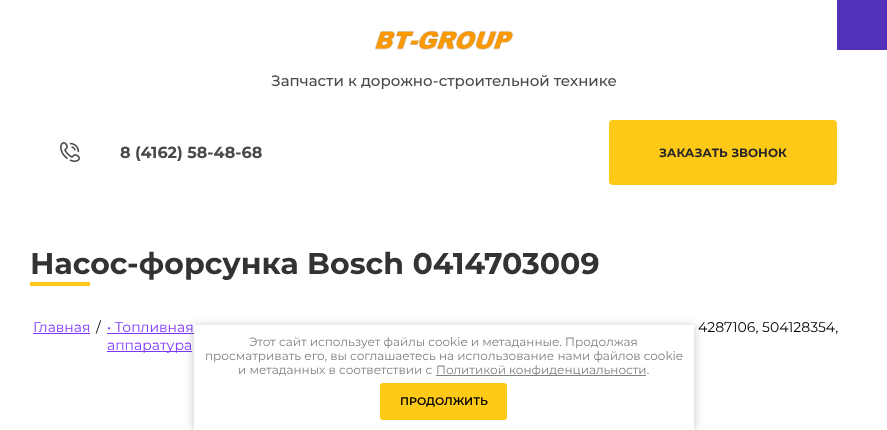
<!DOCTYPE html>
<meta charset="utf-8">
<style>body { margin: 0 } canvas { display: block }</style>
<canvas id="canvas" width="887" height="430"></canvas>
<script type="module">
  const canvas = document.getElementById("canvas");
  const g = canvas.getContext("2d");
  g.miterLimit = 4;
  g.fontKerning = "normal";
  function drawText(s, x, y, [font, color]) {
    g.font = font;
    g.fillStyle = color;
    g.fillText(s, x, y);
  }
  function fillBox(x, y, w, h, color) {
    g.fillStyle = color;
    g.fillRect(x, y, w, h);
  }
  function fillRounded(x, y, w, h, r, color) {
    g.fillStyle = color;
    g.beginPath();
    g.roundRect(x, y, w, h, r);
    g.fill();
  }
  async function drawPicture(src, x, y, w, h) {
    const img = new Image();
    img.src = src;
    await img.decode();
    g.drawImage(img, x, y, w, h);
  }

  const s1 = ["500 15px Montserrat", "#4A4A4A"];
  const s2 = ["bold 16px Montserrat", "#4A4A4A"];
  const s3 = ["bold 12px Montserrat", "#272727"];
  const s4 = ["bold 30px Montserrat", "#333333"];
  const s5 = ["14px Montserrat", "#7E36FF"];
  const s6 = ["14px Montserrat", "#000000"];
  const s7 = ["12px Montserrat", "#808080"];
  const s8 = ["600 11px Montserrat", "#000000"];

  fillBox(0, 0, 887, 430, "#FFFFFF");
  fillBox(837, 0, 50, 50, "#5231B9");
  await drawPicture("pic1.png", 375, 30, 139, 20);
  drawText("Запчасти к дорожно-строительной технике", 271, 86, s1);
  await drawPicture("pic2.png", 60, 142, 20, 20);
  drawText("8 (4162) 58-48-68", 120, 158, s2);
  fillRounded(609, 120, 228, 65, 4, "#FFC918");
  drawText("ЗАКАЗАТЬ ЗВОНОК", 659, 157, s3);
  drawText("Насос-форсунка Bosch 0414703009", 30, 274, s4);
  fillBox(30, 282, 60, 4, "#FFC918");
  drawText("Главная", 33, 332, s5);
  fillBox(33, 333, 57, 1, "#7E36FF");
  drawText("/", 96, 332, s6);
  drawText("• Топливная", 107, 332, s5);
  fillBox(107, 333, 87, 1, "#7E36FF");
  fillBox(107, 351, 85, 1, "#7E36FF");
  drawText("аппаратура", 107, 350, s5);
  drawText("4287106, 504128354,", 698, 332, s6);
  g.fillStyle = "rgba(0, 0, 0, 0.23)";
  g.filter = "blur(5px)";
  g.beginPath();
  g.rect(194, 326, 500, 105);
  g.fill();
  g.filter = "none";
  fillBox(194, 325, 500, 105, "#FFFFFF");
  drawText("Этот сайт использует файлы cookie и метаданные. Продолжая", 249, 346, s7);
  drawText("просматривать его, вы соглашаетесь на использование нами файлов cookie", 205, 360, s7);
  drawText("и метаданных в соответствии с", 238, 374, s7);
  fillBox(436, 375, 210, 1, "#808080");
  drawText("Политикой конфиденциальности.", 436, 374, s7);
  fillRounded(380, 383, 127, 37, 3, "#FFC918");
  drawText("ПРОДОЛЖИТЬ", 400, 405, s8);
</script>
